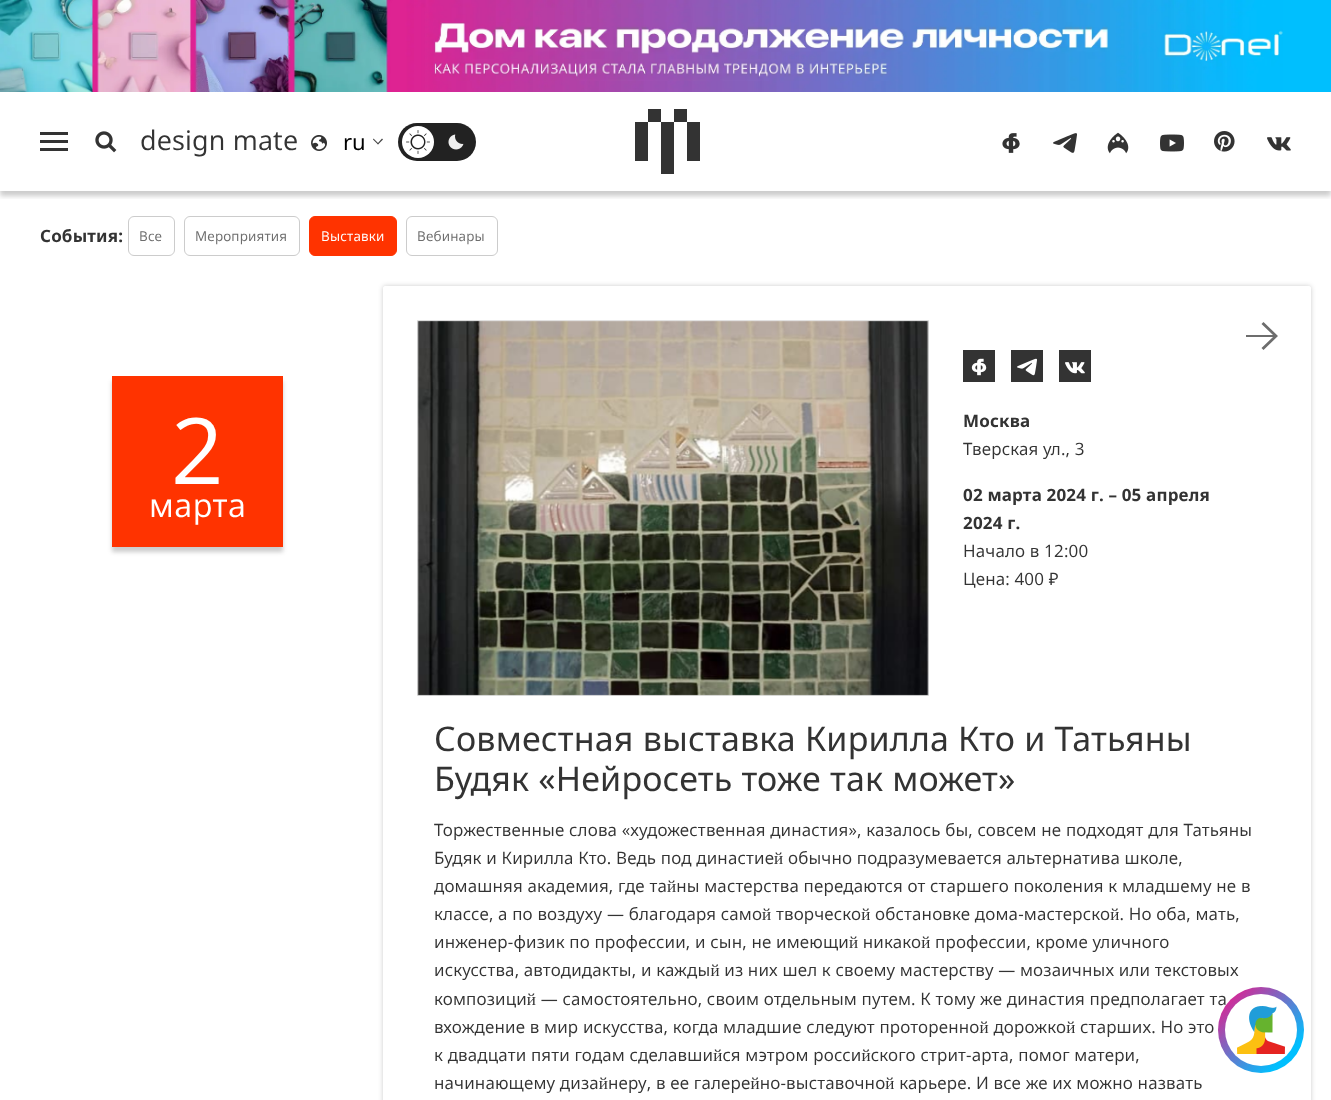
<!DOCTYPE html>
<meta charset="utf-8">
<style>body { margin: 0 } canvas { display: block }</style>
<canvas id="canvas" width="1331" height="1100"></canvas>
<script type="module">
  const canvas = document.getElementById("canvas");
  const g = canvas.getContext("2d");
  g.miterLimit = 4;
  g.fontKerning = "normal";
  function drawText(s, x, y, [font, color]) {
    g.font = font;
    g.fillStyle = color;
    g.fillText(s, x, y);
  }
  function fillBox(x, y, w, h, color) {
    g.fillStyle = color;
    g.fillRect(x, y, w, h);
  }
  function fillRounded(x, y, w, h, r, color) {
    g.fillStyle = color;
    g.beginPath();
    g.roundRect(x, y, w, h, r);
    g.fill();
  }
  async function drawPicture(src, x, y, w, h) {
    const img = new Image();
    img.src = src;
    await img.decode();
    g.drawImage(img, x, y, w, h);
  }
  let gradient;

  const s1 = ["27px Noto Sans", "#333333"];
  const s2 = ["22px 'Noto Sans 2'", "#000000"];
  const s3 = ["bold 17px Noto Sans", "#333333"];
  const s4 = ["13.5px Noto Sans", "#6D6D6D"];
  const s5 = ["13.5px Noto Sans", "#FFFFFF"];
  const s6 = ["92px Noto Sans", "#FFFFFF"];
  const s7 = ["32.5px Noto Sans", "#FFFFFF"];
  const s8 = ["17px Noto Sans", "#333333"];
  const s9 = ["34px 'Noto Sans 2'", "#333333"];

  fillBox(0, 0, 1331, 1100, "#FFFFFF");
  gradient = g.createLinearGradient(0, 46, 1331, 46);
  gradient.addColorStop(0.3, "#DD2392");
  gradient.addColorStop(0.6, "#00BFFE");
  g.fillStyle = gradient;
  g.fillRect(1283, 0, 48, 92);
  await drawPicture("pic1.png", 0, 0, 1283, 92);
  g.save();
  g.beginPath();
  g.rect(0, 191, 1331, 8);
  g.clip();
  g.fillStyle = "rgba(0, 0, 0, 0.2)";
  g.filter = "blur(2.5px)";
  g.beginPath();
  g.rect(0, 97, 1331, 99);
  g.fill();
  g.filter = "none";
  g.restore();
  fillBox(40, 132, 28, 3, "#333333");
  fillBox(40, 140, 28, 3, "#333333");
  fillBox(40, 148, 28, 3, "#333333");
  await drawPicture("pic2.png", 95, 131, 22, 22);
  g.letterSpacing = "0.17px";
  drawText("design mate", 140, 150, s1);
  await drawPicture("pic3.png", 311, 135, 16, 16);
  g.letterSpacing = "0px";
  drawText("ru", 343, 150, s2);
  g.fillStyle = "#444444";
  g.beginPath();
  g.moveTo(382, 138.5);
  g.lineTo(383, 139.5);
  g.lineTo(378, 144.5);
  g.lineTo(377.5, 143.5);
  g.closePath();
  g.fill();
  g.beginPath();
  g.moveTo(373.5, 138.5);
  g.lineTo(378.5, 143.5);
  g.lineTo(378, 144.5);
  g.lineTo(373, 139.5);
  g.closePath();
  g.fill();
  fillRounded(398, 123, 78, 38, 19, "#222222");
  g.fillStyle = "#FFFFFF";
  g.beginPath();
  g.arc(418, 142, 16, 0, Math.PI * 2);
  g.fill();
  await drawPicture("pic4.png", 406, 130, 24, 24);
  await drawPicture("pic5.png", 448, 134, 16, 16);
  fillBox(648, 109, 13, 13, "#333333");
  fillBox(674, 109, 13, 13, "#333333");
  fillBox(635, 122, 13, 39, "#333333");
  fillBox(661, 122, 13, 52, "#333333");
  fillBox(687, 122, 13, 39, "#333333");
  await drawPicture("pic6.png", 1002, 133, 18, 20);
  await drawPicture("pic7.png", 1053, 133, 24, 20);
  await drawPicture("pic8.png", 1107, 132, 22, 22);
  await drawPicture("pic9.png", 1160, 134, 24, 18);
  await drawPicture("pic10.png", 1214, 131, 21, 21);
  await drawPicture("pic11.png", 1267, 137, 24, 14);
  g.letterSpacing = "0.17px";
  drawText("События:", 40, 242, s3);
  g.beginPath();
  g.roundRect(128.5, 216.5, 46, 39, 5.5);
  g.strokeStyle = "#CCCCCC";
  g.stroke();
  drawText("Все", 139, 241, s4);
  g.beginPath();
  g.roundRect(184.5, 216.5, 115, 39, 5.5);
  g.stroke();
  drawText("Мероприятия", 195, 241, s4);
  g.fillStyle = "#FF3300";
  g.beginPath();
  g.roundRect(309.5, 216.5, 87, 39, 5.5);
  g.fill();
  g.strokeStyle = "#FF3300";
  g.stroke();
  drawText("Выставки", 321, 241, s5);
  g.beginPath();
  g.roundRect(406.5, 216.5, 91, 39, 5.5);
  g.strokeStyle = "#CCCCCC";
  g.stroke();
  drawText("Вебинары", 417, 241, s4);
  g.fillStyle = "rgba(0, 0, 0, 0.2)";
  g.filter = "blur(2px)";
  g.beginPath();
  g.rect(112, 381, 171, 171);
  g.fill();
  g.filter = "none";
  fillBox(112, 376, 171, 171, "#FF3300");
  g.letterSpacing = "0.5px";
  drawText("2", 171, 484, s6);
  drawText("марта", 149, 517, s7);
  g.save();
  g.beginPath();
  g.moveTo(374, 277);
  g.lineTo(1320, 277);
  g.lineTo(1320, 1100);
  g.lineTo(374, 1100);
  g.closePath();
  g.moveTo(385, 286);
  g.lineTo(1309, 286);
  g.bezierCurveTo(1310, 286, 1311, 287, 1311, 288);
  g.lineTo(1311, 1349);
  g.bezierCurveTo(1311, 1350, 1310, 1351, 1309, 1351);
  g.lineTo(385, 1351);
  g.bezierCurveTo(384, 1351, 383, 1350, 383, 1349);
  g.lineTo(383, 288);
  g.bezierCurveTo(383, 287, 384, 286, 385, 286);
  g.closePath();
  g.clip("evenodd");
  g.fillStyle = "rgba(0, 0, 0, 0.2)";
  g.filter = "blur(2.5px)";
  g.beginPath();
  g.roundRect(383, 286, 928, 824, 2);
  g.fill();
  g.filter = "none";
  g.restore();
  g.fillStyle = "#6D6D6D";
  g.beginPath();
  g.moveTo(1263.5, 350);
  g.lineTo(1261.5, 348);
  g.lineTo(1273, 337);
  g.lineTo(1246, 337);
  g.lineTo(1246, 335);
  g.lineTo(1273, 335);
  g.lineTo(1261.5, 324);
  g.lineTo(1263.5, 322);
  g.lineTo(1278, 336);
  g.closePath();
  g.fill();
  g.strokeStyle = "#E5E5E5";
  g.strokeRect(417.5, 320.5, 511, 375);
  await drawPicture("pic12.png", 417, 320, 512, 376);
  fillBox(963, 350, 32, 32, "#333333");
  await drawPicture("pic13.png", 971, 358, 16, 18);
  fillBox(1011, 350, 32, 32, "#333333");
  await drawPicture("pic14.png", 1017, 358, 20, 18);
  fillBox(1059, 350, 32, 32, "#333333");
  await drawPicture("pic15.png", 1065, 362, 20, 12);
  g.letterSpacing = "0.17px";
  drawText("Москва", 963, 427, s3);
  drawText("Тверская ул., 3", 963, 455, s8);
  drawText("02 марта 2024 г. – 05 апреля", 963, 501, s3);
  drawText("2024 г.", 963, 529, s3);
  drawText("Начало в 12:00", 963, 557, s8);
  drawText("Цена: 400 ₽", 963, 585, s8);
  drawText("Совместная выставка Кирилла Кто и Татьяны", 434, 751, s9);
  drawText("Будяк «Нейросеть тоже так может»", 434, 791, s9);
  drawText("Торжественные слова «художественная династия», казалось бы, совсем не подходят для Татьяны", 434, 836, s8);
  drawText("Будяк и Кирилла Кто. Ведь под династией обычно подразумевается альтернатива школе,", 434, 864, s8);
  drawText("домашняя академия, где тайны мастерства передаются от старшего поколения к младшему не в", 434, 892, s8);
  drawText("классе, а по воздуху — благодаря самой творческой обстановке дома-мастерской. Но оба, мать,", 434, 920, s8);
  drawText("инженер-физик по профессии, и сын, не имеющий никакой профессии, кроме уличного", 434, 948, s8);
  drawText("искусства, автодидакты, и каждый из них шел к своему мастерству — мозаичных или текстовых", 434, 976, s8);
  drawText("композиций — самостоятельно, своим отдельным путем. К тому же династия предполагает та", 434, 1005, s8);
  drawText("вхождение в мир искусства, когда младшие следуют проторенной дорожкой старших. Но это", 434, 1033, s8);
  drawText("к двадцати пяти годам сделавшийся мэтром российского стрит-арта, помог матери,", 434, 1061, s8);
  drawText("начинающему дизайнеру, в ее галерейно-выставочной карьере. И все же их можно назвать", 434, 1089, s8);
  gradient = g.createLinearGradient(1304, 1073, 1218, 987);
  gradient.addColorStop(0.2, "#00BFFE");
  gradient.addColorStop(0.9, "#DD2392");
  g.fillStyle = gradient;
  g.beginPath();
  g.arc(1261, 1030, 43, 0, Math.PI * 2);
  g.fill();
  g.fillStyle = "#FFFFFF";
  g.beginPath();
  g.arc(1261, 1030, 36, 0, Math.PI * 2);
  g.fill();
  await drawPicture("pic16.png", 1237, 1006, 48, 48);
</script>
